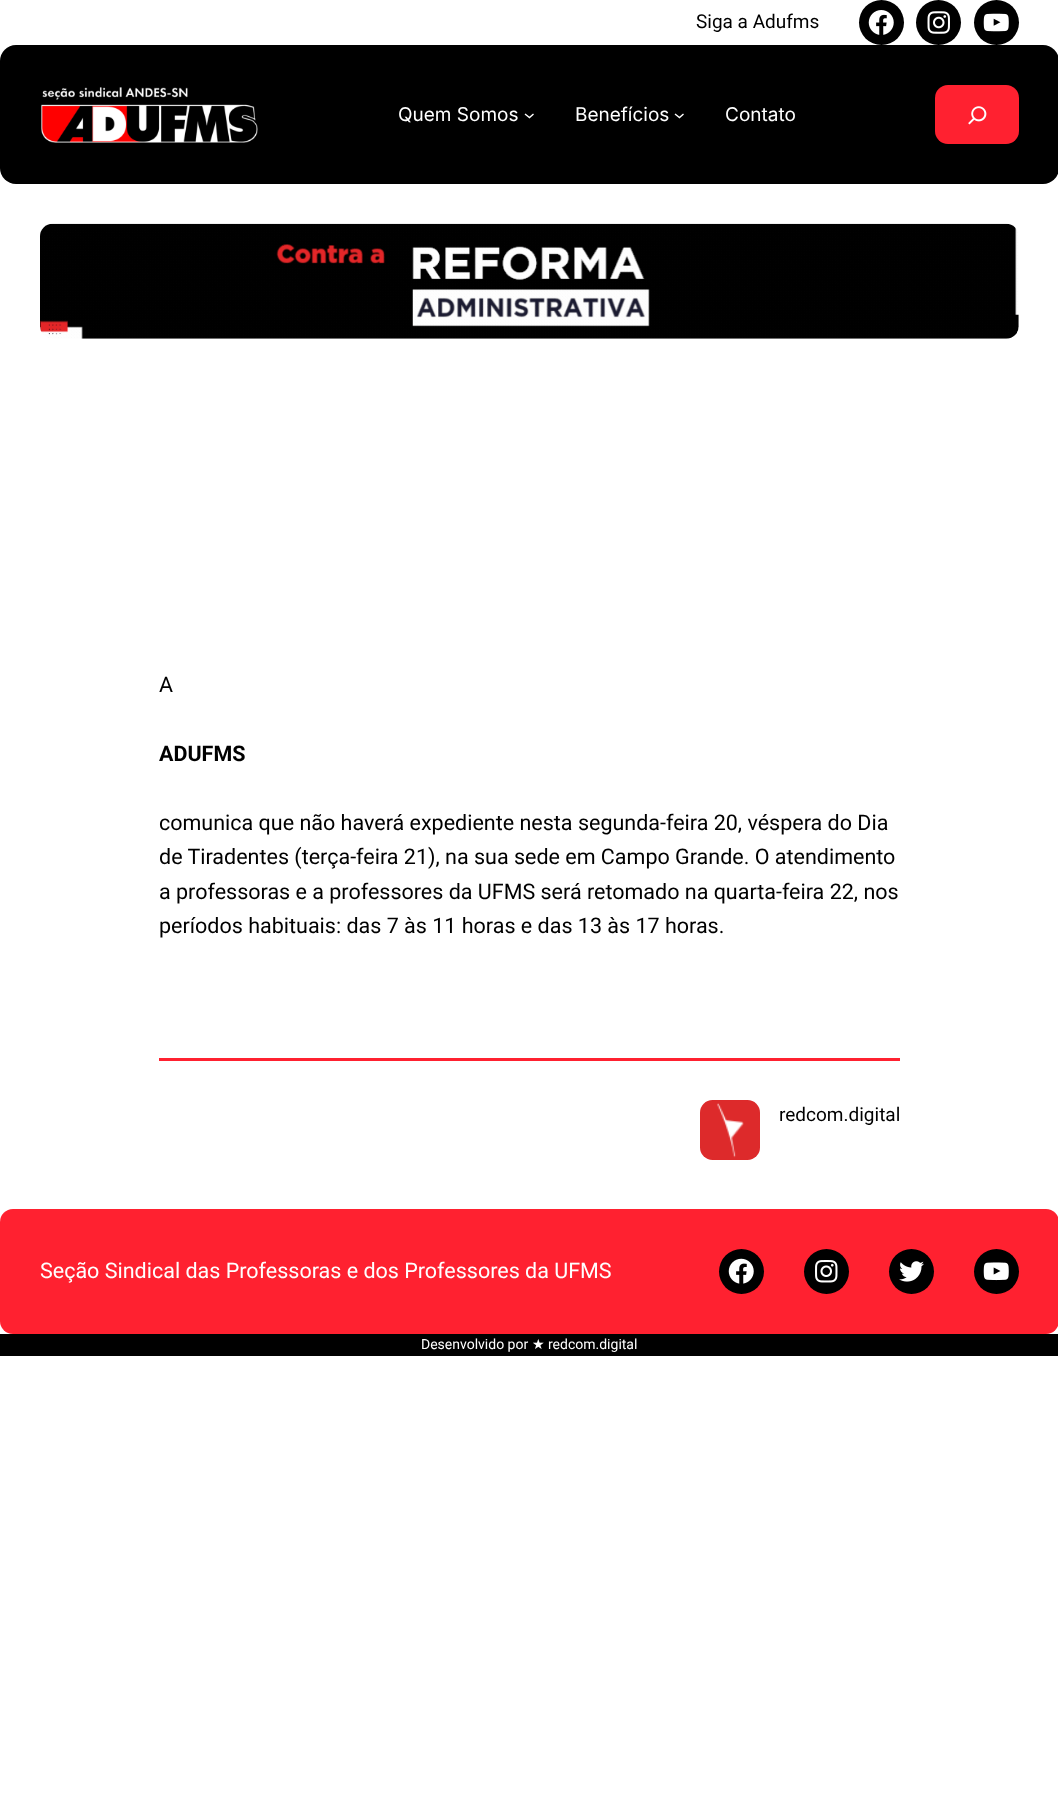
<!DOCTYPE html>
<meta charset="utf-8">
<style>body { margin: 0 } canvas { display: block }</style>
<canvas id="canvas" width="1058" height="1813"></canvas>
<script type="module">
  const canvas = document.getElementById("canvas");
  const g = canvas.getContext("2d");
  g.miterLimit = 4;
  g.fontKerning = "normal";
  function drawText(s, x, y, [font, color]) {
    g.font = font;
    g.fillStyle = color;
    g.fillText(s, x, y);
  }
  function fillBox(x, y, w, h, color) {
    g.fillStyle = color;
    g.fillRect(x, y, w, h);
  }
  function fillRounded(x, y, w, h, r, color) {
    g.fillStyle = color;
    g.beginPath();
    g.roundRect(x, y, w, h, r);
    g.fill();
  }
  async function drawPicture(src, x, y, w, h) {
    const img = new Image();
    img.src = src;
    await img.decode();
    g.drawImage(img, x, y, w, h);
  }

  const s1 = ["19px Roboto", "#000000"];
  const s2 = ["19px Inter", "#FFFFFF"];
  const s3 = ["21.5px Roboto", "#000000"];
  const s4 = ["bold 21.5px Roboto", "#000000"];
  const s5 = ["21.5px Roboto", "#FFFFFF"];
  const s6 = ["14px Roboto", "#FFFFFF"];
  const s7 = ["14px DejaVu Sans", "#FFFFFF"];

  fillBox(0, 0, 1058, 1813, "#FFFFFF");
  drawText("Siga a Adufms", 696, 28, s1);
  g.beginPath();
  g.arc(881.5, 22.5, 22.5, 0, Math.PI * 2);
  g.fill();
  await drawPicture("pic1.png", 868, 10, 26, 25);
  g.beginPath();
  g.arc(938.5, 22.5, 22.5, 0, Math.PI * 2);
  g.fill();
  await drawPicture("pic2.png", 927, 11, 23, 23);
  g.beginPath();
  g.arc(996.5, 22.5, 22.5, 0, Math.PI * 2);
  g.fill();
  await drawPicture("pic3.png", 983, 13, 26, 19);
  fillRounded(0, 45, 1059, 139, 16, "#000000");
  await drawPicture("pic4.png", 41, 87, 217, 56);
  drawText("Quem Somos", 398, 121, s2);
  g.beginPath();
  g.moveTo(525, 114);
  g.lineTo(529.5, 117.5);
  g.lineTo(533.5, 114);
  g.strokeStyle = "#FFFFFF";
  g.lineWidth = 1.4;
  g.stroke();
  drawText("Benefícios", 575, 121, s2);
  g.beginPath();
  g.moveTo(675, 114);
  g.lineTo(679.5, 117.5);
  g.lineTo(683.5, 114);
  g.stroke();
  drawText("Contato", 725, 121, s2);
  fillRounded(935, 85, 84, 59, 13, "#FF2130");
  await drawPicture("pic5.png", 968, 106, 19, 19);
  await drawPicture("pic6.png", 40, 223, 979, 116);
  drawText("A", 159, 692, s3);
  drawText("ADUFMS", 159, 761, s4);
  drawText("comunica que não haverá expediente nesta segunda-feira 20, véspera do Dia", 159, 830, s3);
  drawText("de Tiradentes (terça-feira 21), na sua sede em Campo Grande. O atendimento", 159, 864, s3);
  drawText("a professoras e a professores da UFMS será retomado na quarta-feira 22, nos", 159, 899, s3);
  drawText("períodos habituais: das 7 às 11 horas e das 13 às 17 horas.", 159, 933, s3);
  fillBox(159, 1058, 741, 3, "#FF2130");
  await drawPicture("pic7.png", 700, 1100, 60, 60);
  drawText("redcom.digital", 779, 1121, s1);
  fillRounded(0, 1209, 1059, 125, 13, "#FF2130");
  drawText("Seção Sindical das Professoras e dos Professores da UFMS", 40, 1278, s5);
  g.fillStyle = "#000000";
  g.beginPath();
  g.arc(741.5, 1271.5, 22.5, 0, Math.PI * 2);
  g.fill();
  await drawPicture("pic8.png", 728, 1258, 26, 26);
  g.beginPath();
  g.arc(826.5, 1271.5, 22.5, 0, Math.PI * 2);
  g.fill();
  await drawPicture("pic9.png", 815, 1260, 23, 23);
  g.beginPath();
  g.arc(911.5, 1271.5, 22.5, 0, Math.PI * 2);
  g.fill();
  await drawPicture("pic10.png", 899, 1261, 25, 21);
  g.beginPath();
  g.arc(996.5, 1271.5, 22.5, 0, Math.PI * 2);
  g.fill();
  await drawPicture("pic11.png", 983, 1262, 26, 19);
  fillBox(0, 1334, 1058, 22, "#000000");
  drawText("Desenvolvido por", 421, 1349, s6);
  drawText("★", 532, 1349, s7);
  drawText("redcom.digital", 548, 1349, s6);
</script>
